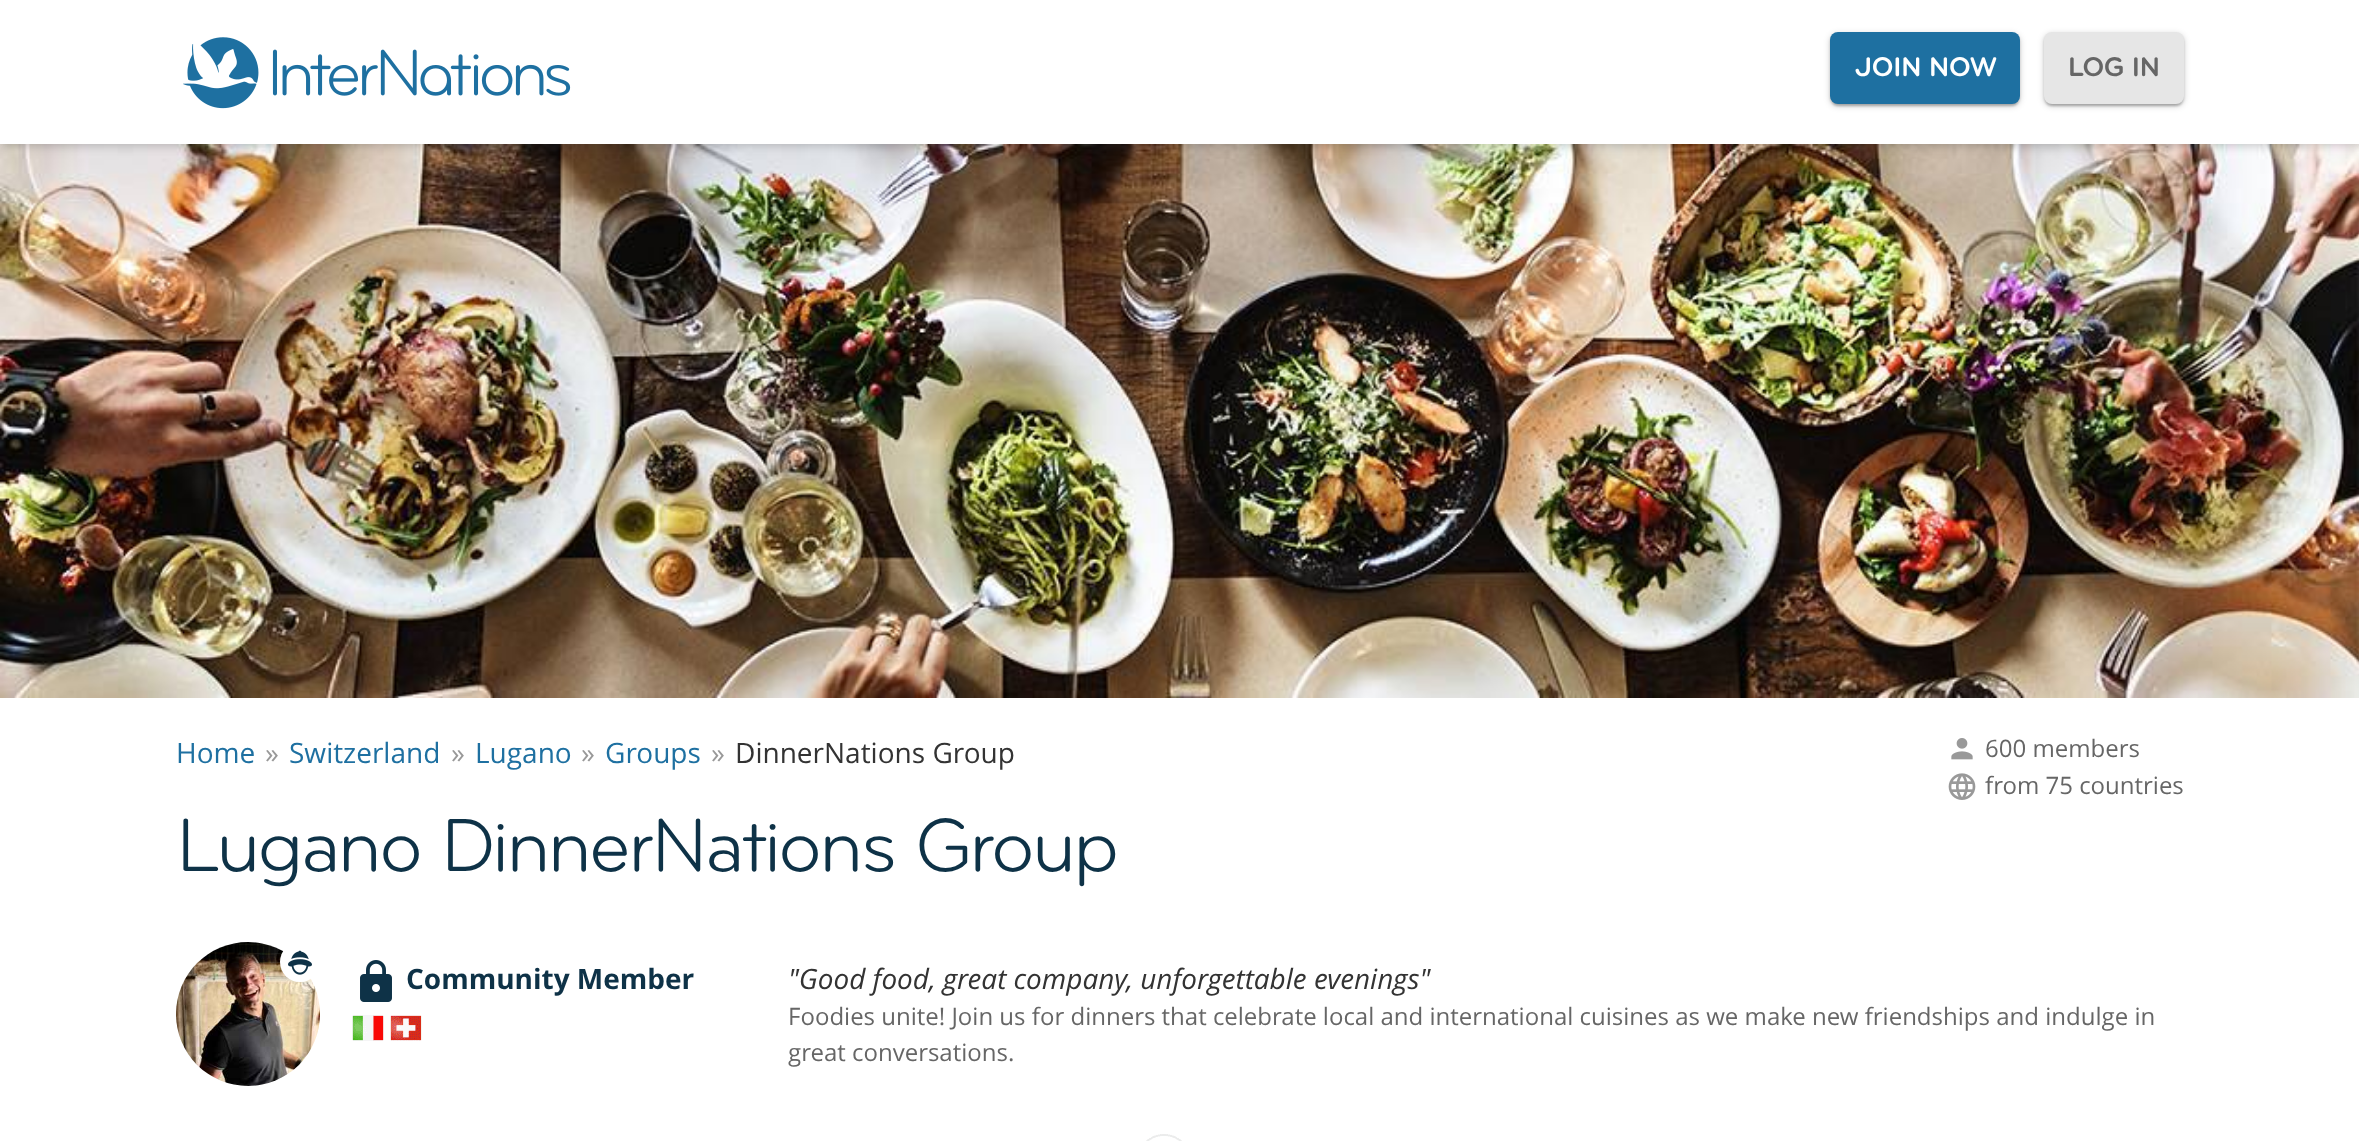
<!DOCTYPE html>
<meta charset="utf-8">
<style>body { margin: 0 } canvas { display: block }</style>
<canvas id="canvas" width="2359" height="1141"></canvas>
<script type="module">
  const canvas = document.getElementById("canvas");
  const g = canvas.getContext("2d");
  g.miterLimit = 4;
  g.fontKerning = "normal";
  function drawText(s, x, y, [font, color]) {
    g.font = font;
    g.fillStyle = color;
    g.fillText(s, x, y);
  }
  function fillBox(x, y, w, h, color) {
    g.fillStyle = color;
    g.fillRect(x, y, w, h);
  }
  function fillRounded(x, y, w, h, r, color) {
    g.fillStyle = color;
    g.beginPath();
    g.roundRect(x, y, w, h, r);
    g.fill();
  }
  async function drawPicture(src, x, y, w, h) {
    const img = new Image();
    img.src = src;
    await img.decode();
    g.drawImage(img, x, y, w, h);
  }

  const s1 = ["bold 28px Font", "#FFFFFF"];
  const s2 = ["bold 28px Font", "#666666"];
  const s3 = ["28px Open Sans", "#1E70A1"];
  const s4 = ["28px Open Sans", "#999999"];
  const s5 = ["28px Open Sans", "#333333"];
  const s6 = ["24px Open Sans", "#666666"];
  const s7 = ["78px Font", "#0E3247"];
  const s8 = ["bold 28px Open Sans", "#0E3247"];
  const s9 = ["italic 28px Open Sans", "#333333"];

  fillBox(0, 0, 2359, 1141, "#FFFFFF");
  await drawPicture("pic2.png", 0, 144, 2359, 554);
  g.fillStyle = "rgba(51, 51, 51, 0.25)";
  g.filter = "blur(5px)";
  g.beginPath();
  g.rect(0, 2, 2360, 144);
  g.fill();
  g.filter = "none";
  fillBox(0, 0, 2359, 144, "#FFFFFF");
  await drawPicture("pic1.png", 183, 37, 388, 72);
  g.fillStyle = "rgba(0, 0, 0, 0.2)";
  g.filter = "blur(3px)";
  g.beginPath();
  g.roundRect(1830, 34, 190, 72, 8);
  g.fill();
  g.filter = "none";
  g.fillStyle = "rgba(0, 0, 0, 0.12)";
  g.filter = "blur(1px)";
  g.beginPath();
  g.roundRect(1832, 38, 186, 68, 6);
  g.fill();
  g.filter = "none";
  g.fillStyle = "rgba(0, 0, 0, 0.14)";
  g.filter = "blur(1px)";
  g.beginPath();
  g.roundRect(1830, 34, 190, 72, 8);
  g.fill();
  g.filter = "none";
  fillRounded(1830, 32, 190, 72, 8, "#1E70A1");
  g.letterSpacing = "-0.25px";
  drawText("JOIN NOW", 1855, 76, s1);
  g.fillStyle = "rgba(0, 0, 0, 0.2)";
  g.filter = "blur(3px)";
  g.beginPath();
  g.roundRect(2044, 34, 140, 72, 8);
  g.fill();
  g.filter = "none";
  g.fillStyle = "rgba(0, 0, 0, 0.12)";
  g.filter = "blur(1px)";
  g.beginPath();
  g.roundRect(2046, 38, 136, 68, 6);
  g.fill();
  g.filter = "none";
  g.fillStyle = "rgba(0, 0, 0, 0.14)";
  g.filter = "blur(1px)";
  g.beginPath();
  g.roundRect(2044, 34, 140, 72, 8);
  g.fill();
  g.filter = "none";
  fillRounded(2044, 32, 140, 72, 8, "#E6E6E6");
  drawText("LOG IN", 2068, 76, s2);
  g.letterSpacing = "0px";
  drawText("Home", 176, 763, s3);
  drawText("»", 265, 763, s4);
  drawText("Switzerland", 289, 763, s3);
  drawText("»", 451, 763, s4);
  drawText("Lugano", 475, 763, s3);
  drawText("»", 581, 763, s4);
  drawText("Groups", 605, 763, s3);
  drawText("»", 711, 763, s4);
  drawText("DinnerNations Group", 735, 763, s5);
  await drawPicture("pic3.png", 1951, 738, 22, 22);
  drawText("600 members", 1985, 757, s6);
  await drawPicture("pic4.png", 1948, 773, 28, 27);
  drawText("from 75 countries", 1985, 794, s6);
  g.letterSpacing = "-2.75px";
  drawText("Lugano DinnerNations Group", 176, 871, s7);
  await drawPicture("pic6.png", 176, 942, 144, 144);
  await drawPicture("pic7.png", 360, 960, 32, 42);
  await drawPicture("pic8.png", 352, 1015, 32, 26);
  g.save();
  g.beginPath();
  g.moveTo(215, 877);
  g.lineTo(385, 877);
  g.lineTo(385, 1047);
  g.lineTo(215, 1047);
  g.closePath();
  g.moveTo(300, 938);
  g.bezierCurveTo(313.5, 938, 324, 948.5, 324, 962);
  g.bezierCurveTo(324, 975.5, 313.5, 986, 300, 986);
  g.bezierCurveTo(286.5, 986, 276, 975.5, 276, 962);
  g.bezierCurveTo(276, 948.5, 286.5, 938, 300, 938);
  g.closePath();
  g.clip("evenodd");
  g.fillStyle = "rgba(255, 255, 255, 0.25)";
  g.filter = "blur(20px)";
  g.beginPath();
  g.roundRect(276, 938, 48, 48, 24);
  g.fill();
  g.filter = "none";
  g.restore();
  g.fillStyle = "#FFFFFF";
  g.beginPath();
  g.arc(300, 962, 20, 0, Math.PI * 2);
  g.fill();
  await drawPicture("pic5.png", 288, 950, 24, 25);
  g.letterSpacing = "0px";
  drawText("Community Member", 406, 989, s8);
  await drawPicture("pic9.png", 390, 1015, 32, 26);
  drawText("\"Good food, great company, unforgettable evenings\"", 788, 989, s9);
  drawText("Foodies unite! Join us for dinners that celebrate local and international cuisines as we make new friendships and indulge in", 788, 1025, s6);
  drawText("great conversations.", 788, 1061, s6);
  await drawPicture("pic10.png", 1146, 1134, 36, 7);
</script>
